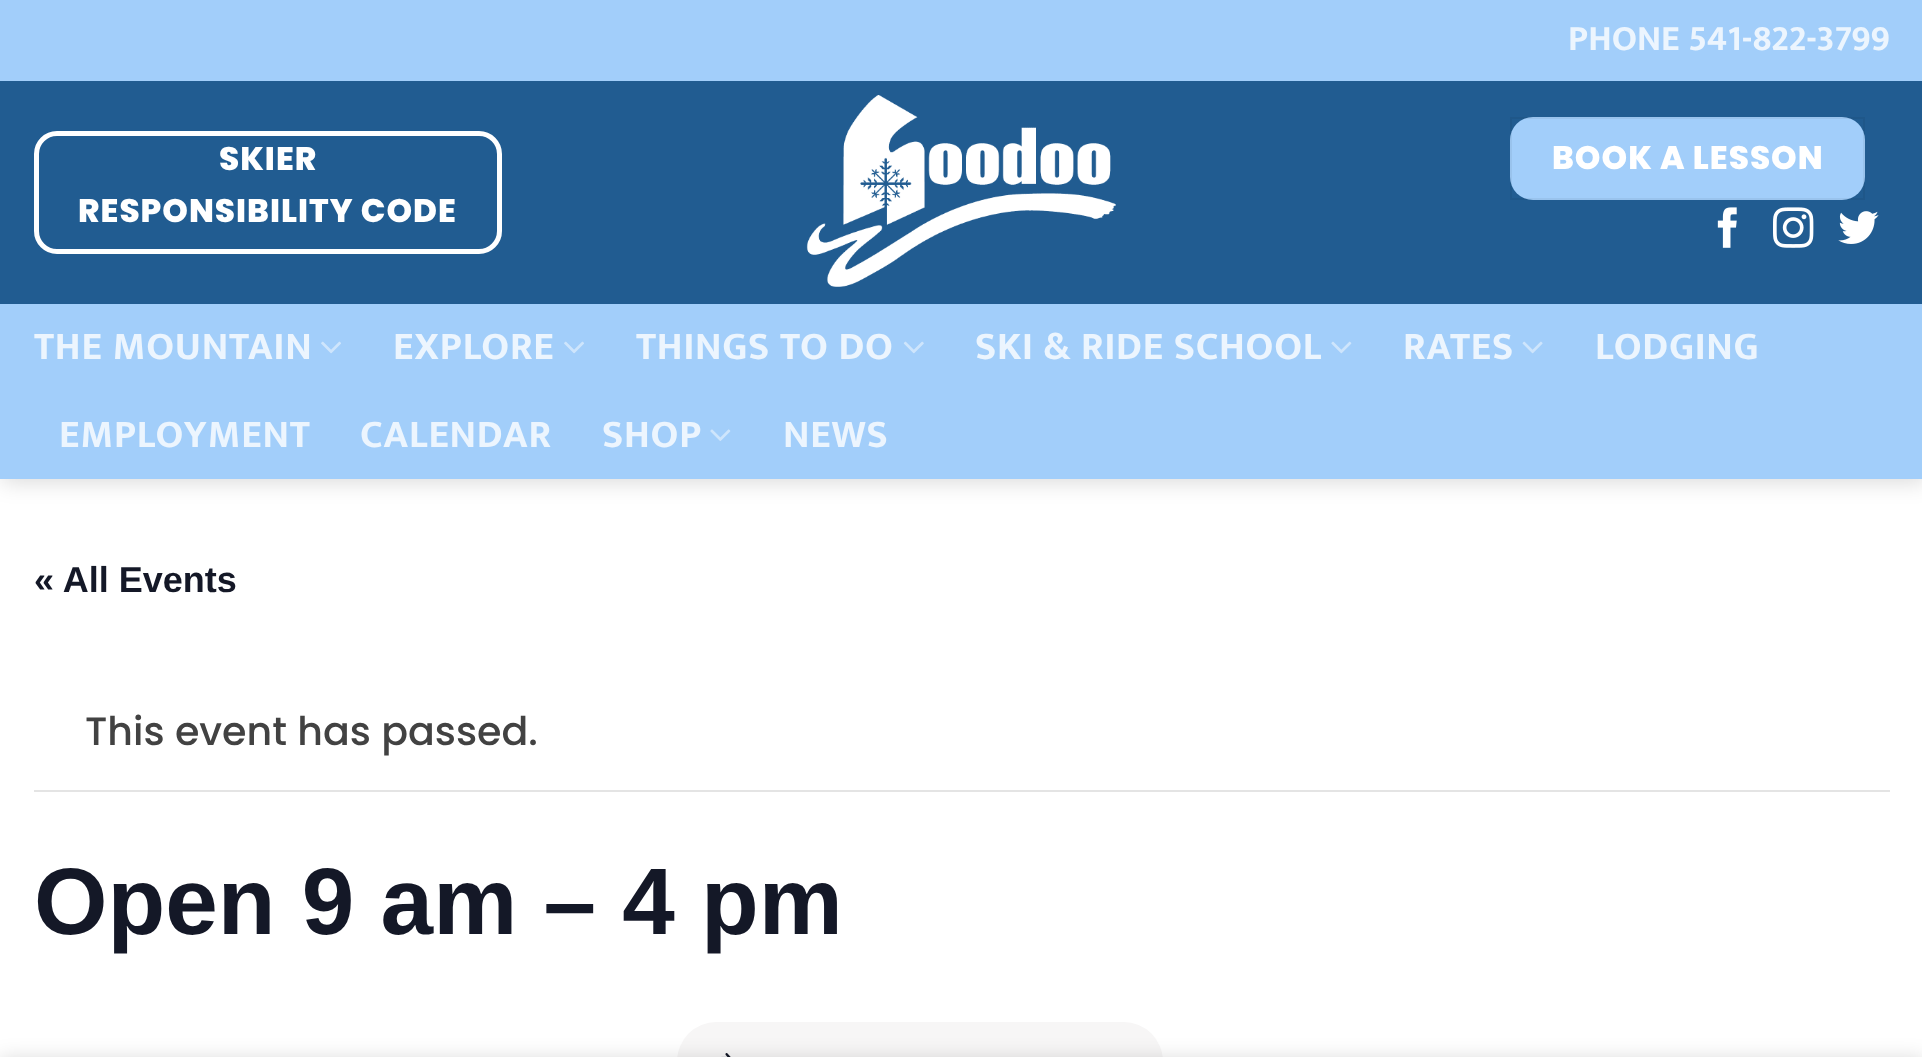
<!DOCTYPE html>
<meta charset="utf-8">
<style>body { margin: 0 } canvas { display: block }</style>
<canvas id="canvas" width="1922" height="1057"></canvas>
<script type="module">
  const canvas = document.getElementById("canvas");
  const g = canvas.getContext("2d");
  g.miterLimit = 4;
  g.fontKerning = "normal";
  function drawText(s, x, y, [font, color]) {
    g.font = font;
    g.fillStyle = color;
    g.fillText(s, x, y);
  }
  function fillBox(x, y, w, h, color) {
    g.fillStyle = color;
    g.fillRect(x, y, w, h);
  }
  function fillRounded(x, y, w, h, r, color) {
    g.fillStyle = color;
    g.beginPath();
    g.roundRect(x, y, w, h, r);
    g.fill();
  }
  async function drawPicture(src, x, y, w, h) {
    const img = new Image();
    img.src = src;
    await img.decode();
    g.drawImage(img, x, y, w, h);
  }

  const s1 = ["bold 36px Mukta", "#ECF5FE"];
  const s2 = ["800 32.6px Poppins", "#FFFFFF"];
  const s3 = ["bold 39.6px Mukta", "#ECF5FE"];
  const s4 = ["bold 36px Liberation Sans", "#141827"];
  const s5 = ["500 39.6px Poppins", "#424242"];
  const s6 = ["bold 94.5px Liberation Sans", "#141827"];

  fillBox(0, 0, 1922, 1057, "#FFFFFF");
  g.fillStyle = "rgba(0, 0, 0, 0.15)";
  g.filter = "blur(11px)";
  g.beginPath();
  g.rect(2, 2, 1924, 480);
  g.fill();
  g.filter = "none";
  fillBox(0, 0, 1922, 81, "#A2CEFA");
  drawText("PHONE 541-822-3799", 1568, 50, s1);
  fillBox(0, 81, 1922, 223, "#215C91");
  g.beginPath();
  g.roundRect(36.5, 133.5, 463, 118, 20.5);
  g.strokeStyle = "#FFFFFF";
  g.lineWidth = 5;
  g.stroke();
  g.letterSpacing = "1px";
  drawText("SKIER", 219, 170, s2);
  drawText("RESPONSIBILITY CODE", 78, 222, s2);
  await drawPicture("pic1.png", 806, 95, 310, 192);
  fillRounded(1510, 117, 355, 83, 23, "#A2CEFA");
  g.strokeStyle = "rgba(0, 0, 0, 0.05)";
  g.lineWidth = 2;
  g.strokeRect(1511, 118, 353, 81);
  drawText("BOOK A LESSON", 1552, 169, s2);
  await drawPicture("pic2.png", 1717, 207, 20, 41);
  await drawPicture("pic3.png", 1773, 207, 41, 41);
  await drawPicture("pic4.png", 1838, 211, 41, 33);
  fillBox(0, 304, 1922, 175, "#A2CEFA");
  g.letterSpacing = "0.75px";
  drawText("THE MOUNTAIN", 34, 359, s3);
  await drawPicture("pic5.png", 321, 341, 20, 13);
  drawText("EXPLORE", 393, 359, s3);
  await drawPicture("pic5.png", 564, 341, 20, 13);
  drawText("THINGS TO DO", 636, 359, s3);
  await drawPicture("pic6.png", 903, 341, 21, 13);
  drawText("SKI & RIDE SCHOOL", 975, 359, s3);
  await drawPicture("pic7.png", 1331, 341, 21, 13);
  drawText("RATES", 1403, 359, s3);
  await drawPicture("pic8.png", 1522, 341, 21, 13);
  drawText("LODGING", 1595, 359, s3);
  drawText("EMPLOYMENT", 59, 447, s3);
  drawText("CALENDAR", 360, 447, s3);
  drawText("SHOP", 602, 447, s3);
  await drawPicture("pic9.png", 710, 429, 21, 12);
  drawText("NEWS", 783, 447, s3);
  g.letterSpacing = "0px";
  drawText("« All Events", 34, 592, s4);
  fillBox(34, 790, 1856, 2, "#E4E4E4");
  drawText("This event has passed.", 85, 745, s5);
  drawText("Open 9 am – 4 pm", 34, 934, s6);
  fillRounded(677, 1022, 486, 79, 43.5, "#F7F6F6");
  await drawPicture("pic10.png", 721, 1053, 10, 4);
  g.fillStyle = "rgba(0, 0, 0, 0.14)";
  g.filter = "blur(10px)";
  g.beginPath();
  g.rect(0, 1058, 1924, 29);
  g.fill();
  g.filter = "none";
</script>
